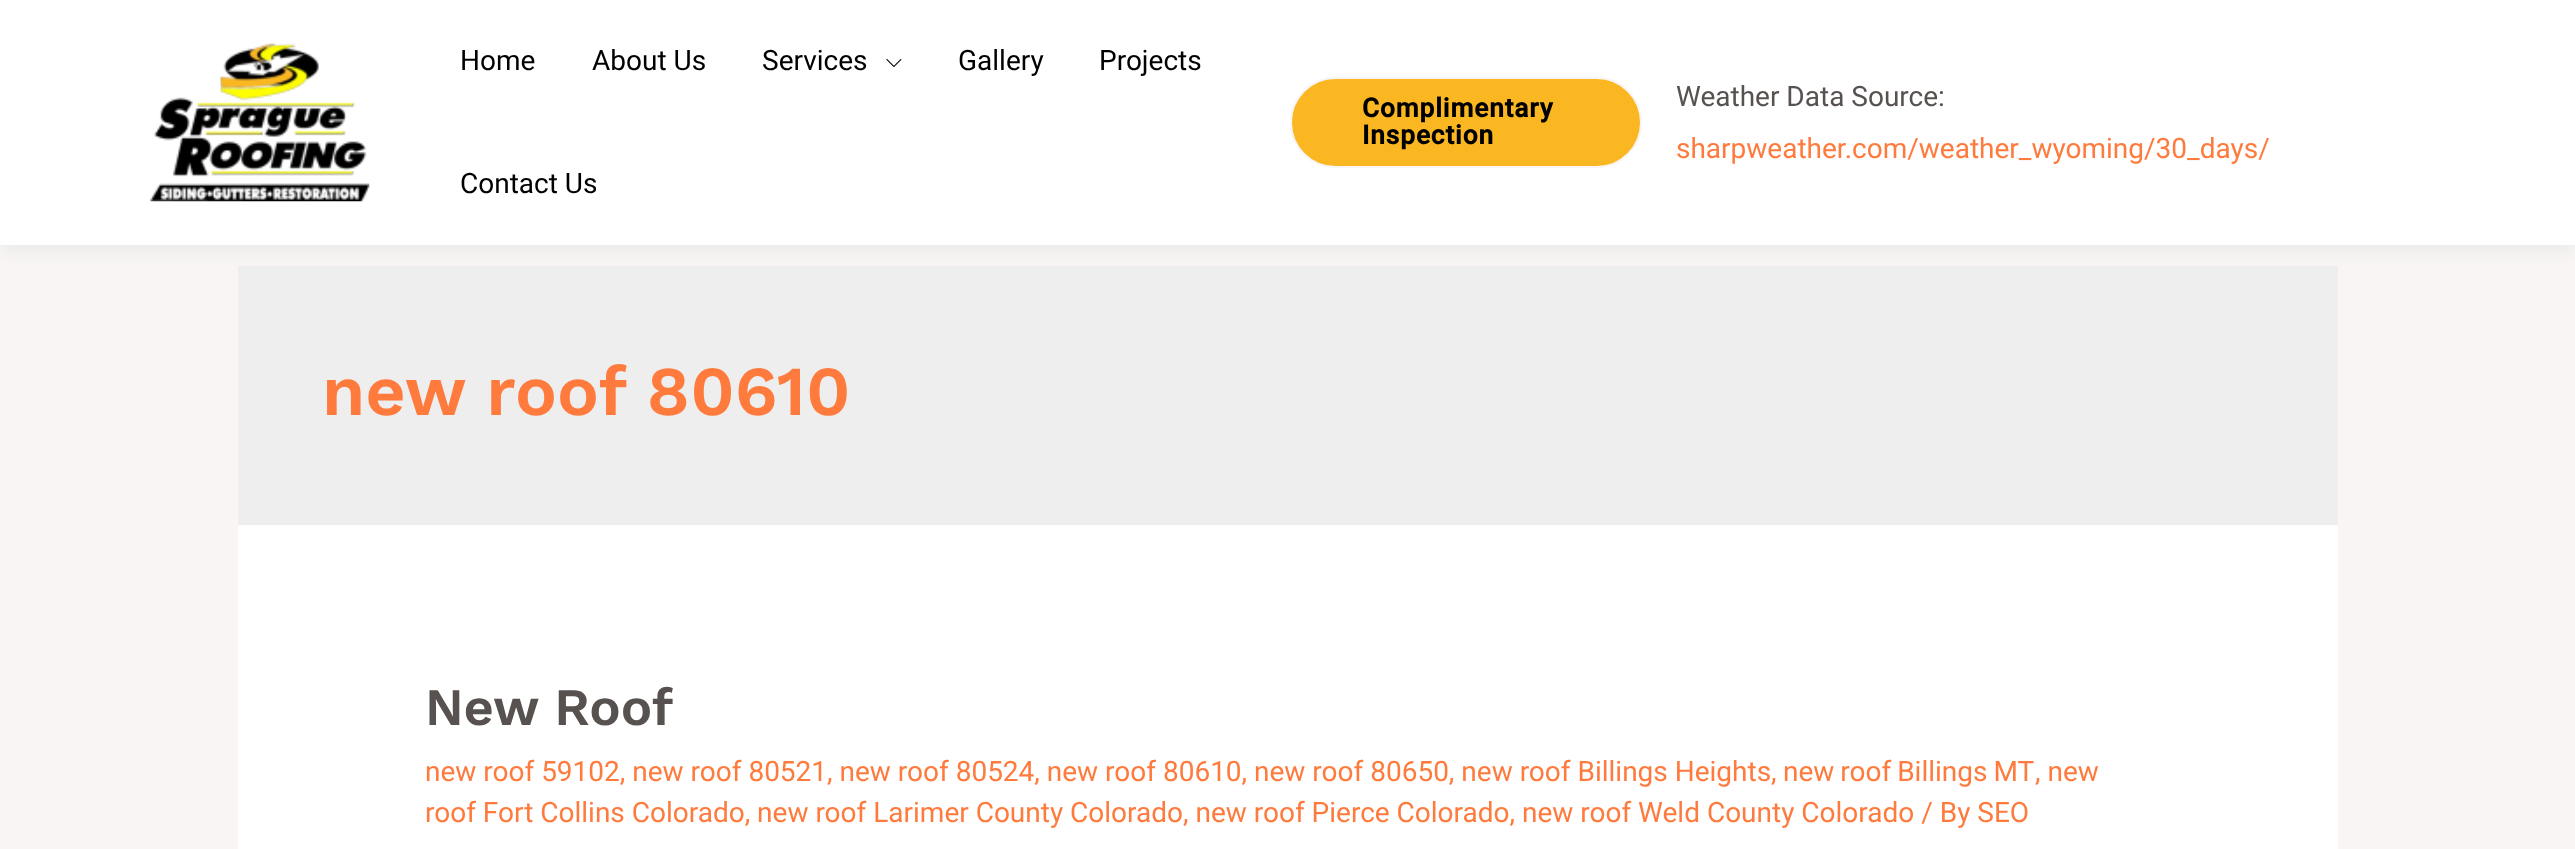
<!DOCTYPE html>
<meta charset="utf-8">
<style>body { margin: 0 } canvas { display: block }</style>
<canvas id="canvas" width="2575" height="849"></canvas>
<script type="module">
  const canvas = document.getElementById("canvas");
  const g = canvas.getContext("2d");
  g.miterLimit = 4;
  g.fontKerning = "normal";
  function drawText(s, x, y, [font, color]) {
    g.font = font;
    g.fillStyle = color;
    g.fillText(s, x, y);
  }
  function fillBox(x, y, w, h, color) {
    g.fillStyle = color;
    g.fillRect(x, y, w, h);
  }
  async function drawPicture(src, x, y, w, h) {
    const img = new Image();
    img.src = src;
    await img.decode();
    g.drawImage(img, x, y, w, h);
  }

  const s1 = ["28px Roboto", "#000000"];
  const s2 = ["bold 26.25px Roboto", "#000000"];
  const s3 = ["28px Roboto", "#575250"];
  const s4 = ["28px Roboto", "#FF7A3D"];
  const s5 = ["600 70px Work Sans", "#FF7A3D"];
  const s6 = ["600 52.5px Work Sans", "#575250"];

  fillBox(0, 0, 2575, 849, "#F8F5F4");
  fillBox(238, 266, 2100, 259, "#EEEEEE");
  g.fillStyle = "rgba(36, 50, 66, 0.07)";
  g.filter = "blur(9px)";
  g.beginPath();
  g.rect(0, 4, 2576, 245);
  g.fill();
  g.filter = "none";
  fillBox(0, 0, 2575, 245, "#FFFFFF");
  await drawPicture("pic1.png", 150, 43, 220, 159);
  drawText("Home", 460, 70, s1);
  drawText("About Us", 592, 70, s1);
  drawText("Services", 762, 70, s1);
  await drawPicture("pic2.png", 886, 59, 16, 8);
  drawText("Gallery", 958, 70, s1);
  drawText("Projects", 1099, 70, s1);
  drawText("Contact Us", 460, 193, s1);
  g.fillStyle = "#FAB721";
  g.beginPath();
  g.roundRect(1291, 78, 350, 89, 44.5);
  g.fill();
  g.strokeStyle = "#F8F5F4";
  g.lineWidth = 2;
  g.stroke();
  g.letterSpacing = "0.9px";
  drawText("Complimentary", 1362, 117, s2);
  drawText("Inspection", 1362, 144, s2);
  g.letterSpacing = "0px";
  drawText("Weather Data Source:", 1676, 106, s3);
  drawText("sharpweather.com/weather_wyoming/30_days/", 1676, 158, s4);
  drawText("new roof 80610", 322, 415, s5);
  fillBox(238, 525, 2100, 324, "#FFFFFF");
  drawText("New Roof", 425, 725, s6);
  drawText("new roof 59102, new roof 80521, new roof 80524, new roof 80610, new roof 80650, new roof Billings Heights,", 425, 781, s4);
  g.wordSpacing = "-1px";
  drawText("new roof Billings MT", 1783, 781, s4);
  g.wordSpacing = "0px";
  drawText(", new", 2035, 781, s4);
  drawText("roof Fort Collins Colorado, new roof Larimer County Colorado, new roof Pierce Colorado, new roof Weld County Colorado / By SEO", 425, 822, s4);
</script>
